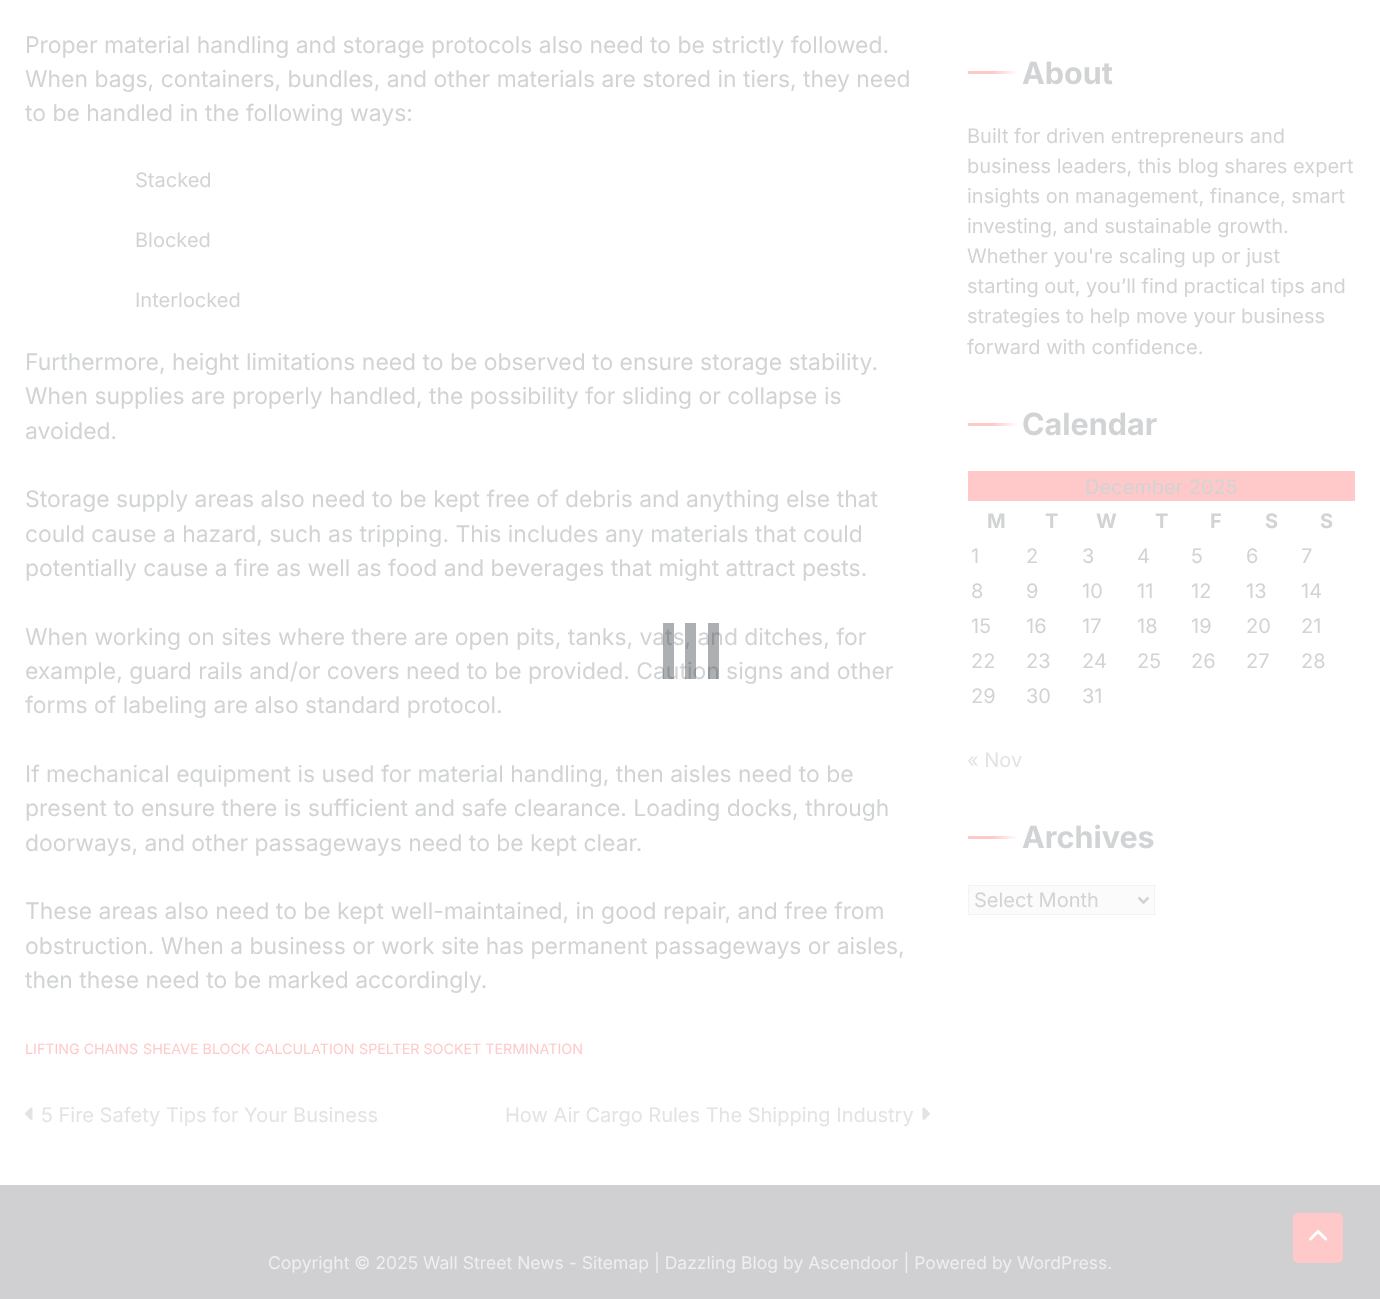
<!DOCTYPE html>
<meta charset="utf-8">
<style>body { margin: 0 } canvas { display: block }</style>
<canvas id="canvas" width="1380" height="1299"></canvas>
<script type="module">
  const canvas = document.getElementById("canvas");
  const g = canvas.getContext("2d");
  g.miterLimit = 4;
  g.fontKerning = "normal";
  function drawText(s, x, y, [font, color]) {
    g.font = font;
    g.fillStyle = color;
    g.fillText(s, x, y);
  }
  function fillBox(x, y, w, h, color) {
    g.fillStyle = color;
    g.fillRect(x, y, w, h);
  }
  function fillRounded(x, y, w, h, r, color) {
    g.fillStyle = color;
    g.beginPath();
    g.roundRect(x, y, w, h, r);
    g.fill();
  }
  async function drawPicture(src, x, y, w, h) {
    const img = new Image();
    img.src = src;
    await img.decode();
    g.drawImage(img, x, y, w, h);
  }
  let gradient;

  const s1 = ["22.9px Inter", "#D1D3D4"];
  const s2 = ["20px Inter", "#D1D3D4"];
  const s3 = ["14.25px Inter", "#FFC9C9"];
  const s4 = ["20px Inter", "#E2E3E3"];
  const s5 = ["bold 30.5px Inter", "#D1D3D4"];
  const s6 = ["bold 20px Inter", "#D1D3D4"];
  const s7 = ["17.55px Inter", "#EFEFEF"];

  fillBox(0, 0, 1380, 1299, "#FFFFFF");
  drawText("Proper material handling and storage protocols also need to be strictly followed.", 25, 53, s1);
  drawText("When bags, containers, bundles, and other materials are stored in tiers, they need", 25, 87, s1);
  drawText("to be handled in the following ways:", 25, 121, s1);
  drawText("Stacked", 135, 187, s2);
  drawText("Blocked", 135, 247, s2);
  drawText("Interlocked", 135, 307, s2);
  drawText("Furthermore, height limitations need to be observed to ensure storage stability.", 25, 370, s1);
  drawText("When supplies are properly handled, the possibility for sliding or collapse is", 25, 404, s1);
  drawText("avoided.", 25, 439, s1);
  drawText("Storage supply areas also need to be kept free of debris and anything else that", 25, 507, s1);
  drawText("could cause a hazard, such as tripping. This includes any materials that could", 25, 542, s1);
  drawText("potentially cause a fire as well as food and beverages that might attract pests.", 25, 576, s1);
  drawText("When working on sites where there are open pits, tanks, vats, and ditches, for", 25, 645, s1);
  drawText("example, guard rails and/or covers need to be provided. Caution signs and other", 25, 679, s1);
  drawText("forms of labeling are also standard protocol.", 25, 713, s1);
  drawText("If mechanical equipment is used for material handling, then aisles need to be", 25, 782, s1);
  drawText("present to ensure there is sufficient and safe clearance. Loading docks, through", 25, 816, s1);
  drawText("doorways, and other passageways need to be kept clear.", 25, 851, s1);
  drawText("These areas also need to be kept well-maintained, in good repair, and free from", 25, 919, s1);
  drawText("obstruction. When a business or work site has permanent passageways or aisles,", 25, 954, s1);
  drawText("then these need to be marked accordingly.", 25, 988, s1);
  drawText("LIFTING CHAINS", 25, 1054, s3);
  drawText("SHEAVE BLOCK CALCULATION", 143, 1054, s3);
  drawText("SPELTER SOCKET TERMINATION", 359, 1054, s3);
  await drawPicture("pic1.png", 25, 1107, 8, 13);
  drawText("5 Fire Safety Tips for Your Business", 41, 1122, s4);
  drawText("How Air Cargo Rules The Shipping Industry", 505, 1122, s4);
  await drawPicture("pic2.png", 922, 1107, 8, 13);
  gradient = g.createLinearGradient(968, 73, 1018, 73);
  gradient.addColorStop(0, "#FFC9C9");
  gradient.addColorStop(0.5, "#FFC9C9");
  gradient.addColorStop(1, "#FFFFFF");
  g.fillStyle = gradient;
  g.fillRect(968, 71, 50, 3);
  drawText("About", 1022, 84, s5);
  drawText("Built for driven entrepreneurs and", 967, 143, s2);
  drawText("business leaders, this blog shares expert", 967, 173, s2);
  drawText("insights on management, finance, smart", 967, 203, s2);
  drawText("investing, and sustainable growth.", 967, 233, s2);
  drawText("Whether you're scaling up or just", 967, 263, s2);
  drawText("starting out, you’ll find practical tips and", 967, 293, s2);
  drawText("strategies to help move your business", 967, 323, s2);
  drawText("forward with confidence.", 967, 354, s2);
  gradient = g.createLinearGradient(968, 424, 1018, 424);
  gradient.addColorStop(0, "#FFC9C9");
  gradient.addColorStop(0.5, "#FFC9C9");
  gradient.addColorStop(1, "#FFFFFF");
  g.fillStyle = gradient;
  g.fillRect(968, 423, 50, 3);
  drawText("Calendar", 1022, 435, s5);
  fillBox(968, 471, 387, 30, "#FFC9C9");
  drawText("December 2025", 1085, 494, s2);
  drawText("M", 987, 528, s6);
  drawText("T", 1045, 528, s6);
  drawText("W", 1096, 528, s6);
  drawText("T", 1155, 528, s6);
  drawText("F", 1210, 528, s6);
  drawText("S", 1265, 528, s6);
  drawText("S", 1320, 528, s6);
  drawText("1", 971, 563, s2);
  drawText("2", 1026, 563, s2);
  drawText("3", 1082, 563, s2);
  drawText("4", 1137, 563, s2);
  drawText("5", 1191, 563, s2);
  drawText("6", 1246, 563, s2);
  drawText("7", 1301, 563, s2);
  drawText("8", 971, 598, s2);
  drawText("9", 1026, 598, s2);
  drawText("10", 1082, 598, s2);
  drawText("11", 1137, 598, s2);
  drawText("12", 1191, 598, s2);
  drawText("13", 1246, 598, s2);
  drawText("14", 1301, 598, s2);
  drawText("15", 971, 633, s2);
  drawText("16", 1026, 633, s2);
  drawText("17", 1082, 633, s2);
  drawText("18", 1137, 633, s2);
  drawText("19", 1191, 633, s2);
  drawText("20", 1246, 633, s2);
  drawText("21", 1301, 633, s2);
  drawText("22", 971, 668, s2);
  drawText("23", 1026, 668, s2);
  drawText("24", 1082, 668, s2);
  drawText("25", 1137, 668, s2);
  drawText("26", 1191, 668, s2);
  drawText("27", 1246, 668, s2);
  drawText("28", 1301, 668, s2);
  drawText("29", 971, 703, s2);
  drawText("30", 1026, 703, s2);
  drawText("31", 1082, 703, s2);
  drawText("« Nov", 967, 767, s4);
  gradient = g.createLinearGradient(968, 838, 1018, 838);
  gradient.addColorStop(0, "#FFC9C9");
  gradient.addColorStop(0.5, "#FFC9C9");
  gradient.addColorStop(1, "#FFFFFF");
  g.fillStyle = gradient;
  g.fillRect(968, 836, 50, 3);
  drawText("Archives", 1022, 848, s5);
  g.fillStyle = "#FBFBFB";
  g.beginPath();
  g.rect(968.5, 885.5, 186, 29);
  g.fill();
  g.strokeStyle = "#F3F3F3";
  g.stroke();
  g.beginPath();
  g.moveTo(1138.5, 897.5);
  g.lineTo(1143.5, 902.5);
  g.lineTo(1148.5, 897.5);
  g.strokeStyle = "#D3D3D3";
  g.lineWidth = 2.5;
  g.stroke();
  drawText("Select Month", 974, 907, s2);
  fillBox(708, 623, 11, 56, "rgba(57, 62, 70, 0.41)");
  fillBox(685, 623, 11, 56, "rgba(57, 62, 70, 0.41)");
  fillBox(663, 623, 11, 56, "rgba(57, 62, 70, 0.41)");
  fillBox(0, 1185, 1380, 114, "#D0D0D2");
  drawText("Copyright © 2025 Wall Street News - Sitemap | Dazzling Blog by Ascendoor | Powered by WordPress.", 268, 1269, s7);
  fillRounded(1293, 1213, 50, 50, 5, "#FFC9C9");
  await drawPicture("pic3.png", 1309, 1229, 19, 12);
</script>
